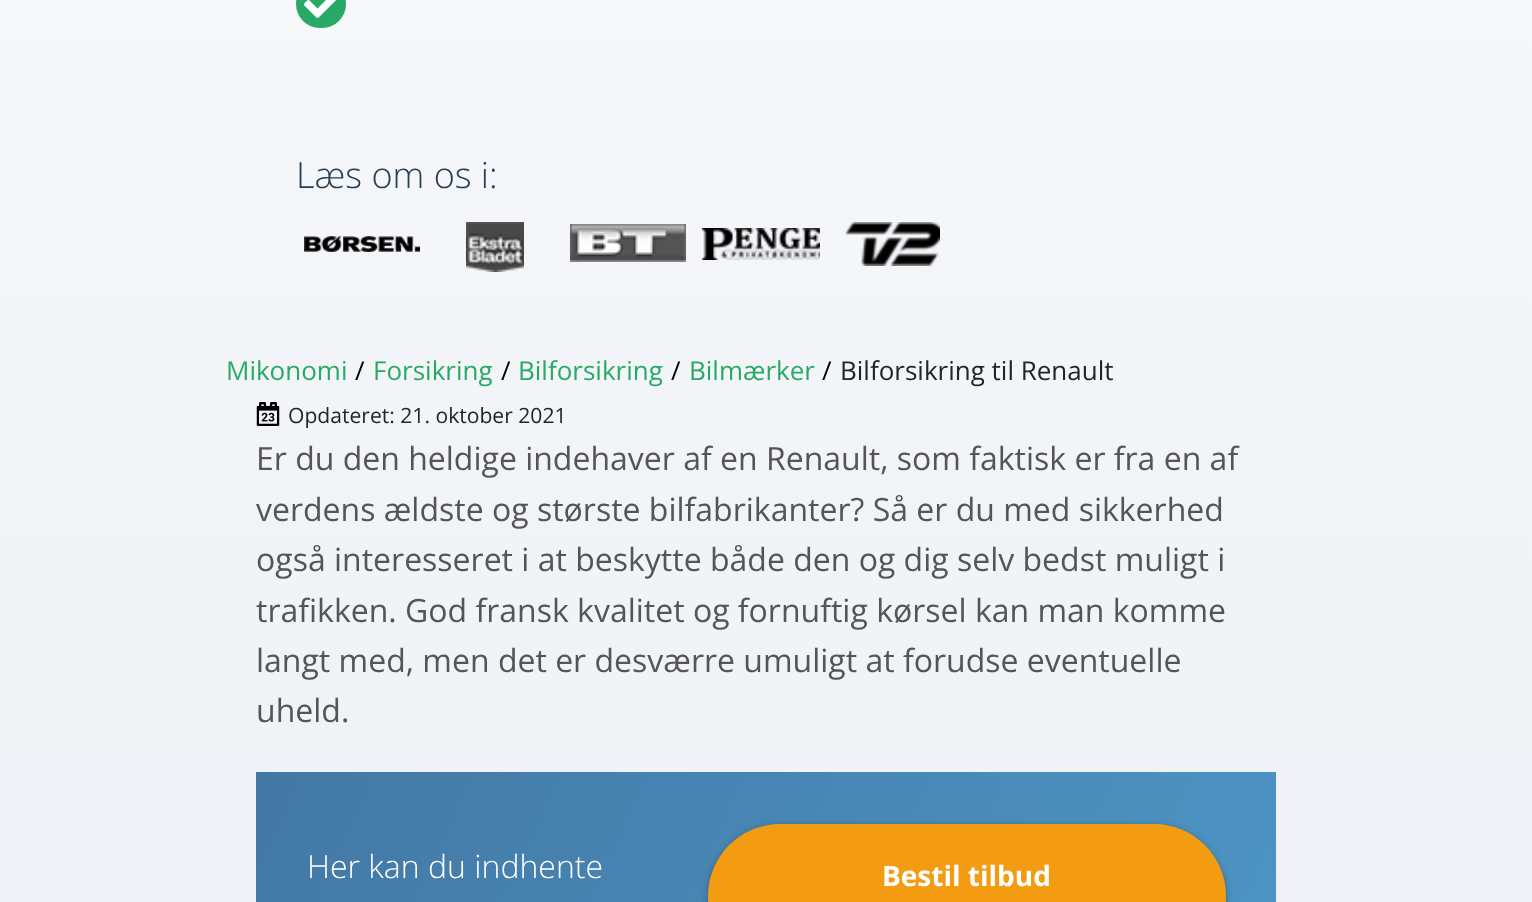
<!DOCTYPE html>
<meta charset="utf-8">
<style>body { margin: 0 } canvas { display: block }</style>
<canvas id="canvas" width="1532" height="902"></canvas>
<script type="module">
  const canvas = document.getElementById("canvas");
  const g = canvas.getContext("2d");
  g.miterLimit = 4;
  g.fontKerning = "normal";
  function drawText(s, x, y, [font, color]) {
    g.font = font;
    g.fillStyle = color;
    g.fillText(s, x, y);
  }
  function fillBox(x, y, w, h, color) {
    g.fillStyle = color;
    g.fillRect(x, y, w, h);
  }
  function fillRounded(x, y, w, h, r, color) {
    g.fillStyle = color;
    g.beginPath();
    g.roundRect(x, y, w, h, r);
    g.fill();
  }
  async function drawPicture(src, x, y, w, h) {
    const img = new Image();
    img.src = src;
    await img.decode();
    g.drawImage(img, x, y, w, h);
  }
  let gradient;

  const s1 = ["300 36px Open Sans", "#233F51"];
  const s2 = ["26px Open Sans", "#28AA66"];
  const s3 = ["26px Open Sans", "#000000"];
  const s4 = ["26px Open Sans", "#212529"];
  const s5 = ["21.1px Open Sans", "#212529"];
  const s6 = ["32px Open Sans", "#555555"];
  const s7 = ["300 32px Open Sans", "#FFFFFF"];
  const s8 = ["bold 28px Open Sans", "#FFFFFF"];

  fillBox(0, 0, 1532, 902, "#FFFFFF");
  gradient = g.createLinearGradient(766, -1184, 766, 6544);
  gradient.addColorStop(0, "#FFFFFF");
  gradient.addColorStop(0.26, "#EFF2F6");
  g.fillStyle = gradient;
  g.fillRect(0, 0, 1532, 902);
  fillRounded(296, -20, 50, 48, 24, "#28AA66");
  await drawPicture("pic1.png", 304, 0, 32, 18);
  drawText("Læs om os i:", 296, 188, s1);
  await drawPicture("pic2.png", 304, 236, 116, 16);
  await drawPicture("pic3.png", 466, 222, 58, 50);
  await drawPicture("pic4.png", 570, 224, 116, 38);
  await drawPicture("pic5.png", 702, 228, 118, 32);
  await drawPicture("pic6.png", 846, 222, 94, 44);
  drawText("Mikonomi", 226, 380, s2);
  drawText("/", 355, 380, s3);
  drawText("Forsikring", 373, 380, s2);
  drawText("/", 501, 380, s3);
  drawText("Bilforsikring", 518, 380, s2);
  drawText("/", 671, 380, s3);
  drawText("Bilmærker", 689, 380, s2);
  drawText("/", 822, 380, s3);
  drawText("Bilforsikring til Renault", 840, 380, s4);
  await drawPicture("pic7.png", 256, 402, 24, 24);
  drawText("Opdateret: 21. oktober 2021", 288, 423, s5);
  drawText("Er du den heldige indehaver af en Renault, som faktisk er fra en af", 256, 470, s6);
  drawText("verdens ældste og største bilfabrikanter? Så er du med sikkerhed", 256, 521, s6);
  drawText("også interesseret i at beskytte både den og dig selv bedst muligt i", 256, 571, s6);
  drawText("trafikken. God fransk kvalitet og fornuftig kørsel kan man komme", 256, 622, s6);
  drawText("langt med, men det er desværre umuligt at forudse eventuelle", 256, 672, s6);
  drawText("uheld.", 256, 722, s6);
  gradient = g.createLinearGradient(284, 712, 1248, 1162);
  gradient.addColorStop(0, "#4378A5");
  gradient.addColorStop(1, "#4E96C5");
  g.fillStyle = gradient;
  g.fillRect(256, 772, 1020, 130);
  drawText("Her kan du indhente", 307, 878, s7);
  g.fillStyle = "rgba(0, 0, 0, 0.3)";
  g.filter = "blur(3px)";
  g.beginPath();
  g.roundRect(708, 826, 518, 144, 72);
  g.fill();
  g.filter = "none";
  fillRounded(708, 824, 518, 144, 72, "#F39C12");
  drawText("Bestil tilbud", 882, 886, s8);
</script>
